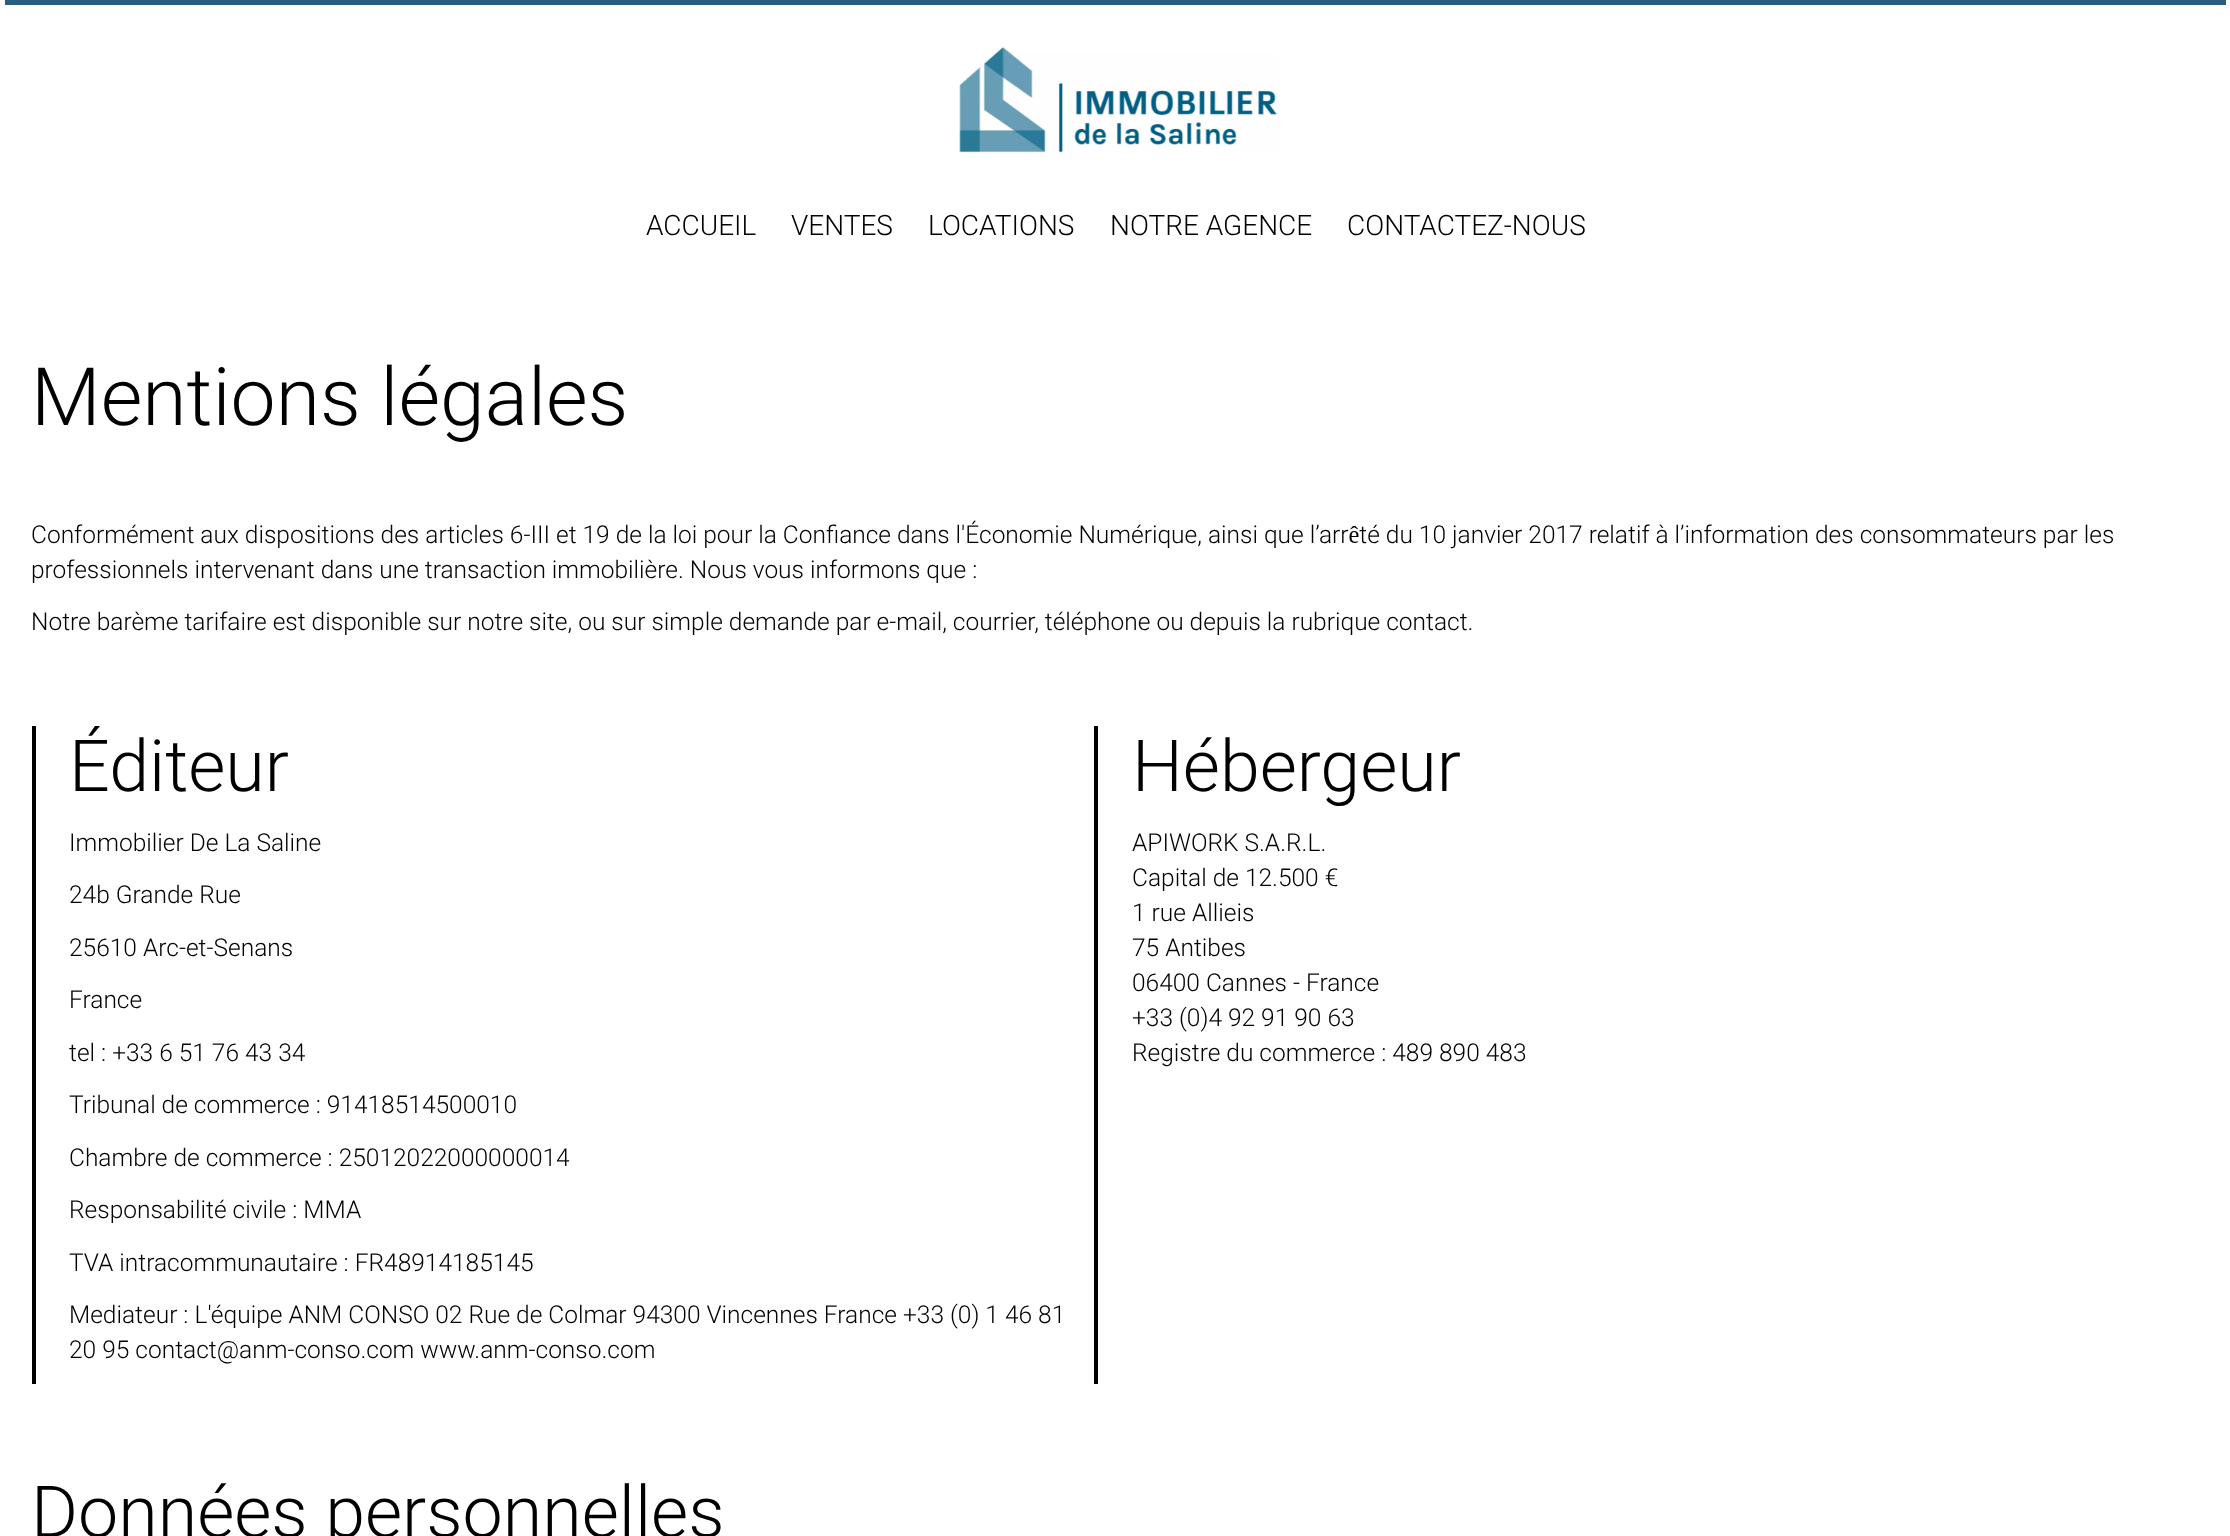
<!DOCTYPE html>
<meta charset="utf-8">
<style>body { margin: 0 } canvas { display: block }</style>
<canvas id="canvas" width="2230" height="1536"></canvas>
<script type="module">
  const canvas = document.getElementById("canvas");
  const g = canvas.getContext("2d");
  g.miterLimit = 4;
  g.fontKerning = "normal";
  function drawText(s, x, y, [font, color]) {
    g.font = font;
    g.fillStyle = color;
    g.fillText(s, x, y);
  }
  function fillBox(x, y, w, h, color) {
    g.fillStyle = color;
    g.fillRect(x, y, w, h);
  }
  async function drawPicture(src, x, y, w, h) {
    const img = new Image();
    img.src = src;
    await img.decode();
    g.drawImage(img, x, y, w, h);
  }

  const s1 = ["300 28px Roboto", "#000000"];
  const s2 = ["300 80.5px Roboto", "#000000"];
  const s3 = ["300 24.5px Roboto", "#000000"];
  const s4 = ["300 71.75px Roboto", "#000000"];

  fillBox(0, 0, 2230, 1536, "#FFFFFF");
  fillBox(5, 0, 2221, 5, "#275E82");
  await drawPicture("pic1.png", 959, 47, 319, 106);
  drawText("ACCUEIL", 646, 235, s1);
  drawText("VENTES", 791, 235, s1);
  drawText("LOCATIONS", 928, 235, s1);
  drawText("NOTRE AGENCE", 1110, 235, s1);
  drawText("CONTACTEZ-NOUS", 1347, 235, s1);
  drawText("Mentions légales", 31, 425, s2);
  drawText("Conformément aux dispositions des articles 6-III et 19 de la loi pour la Confiance dans l'Économie Numérique, ainsi que l’arrêté du 10 janvier 2017 relatif à l’information des consommateurs par les", 31, 543, s3);
  drawText("professionnels intervenant dans une transaction immobilière. Nous vous informons que :", 31, 578, s3);
  drawText("Notre barème tarifaire est disponible sur notre site, ou sur simple demande par e-mail, courrier, téléphone ou depuis la rubrique contact.", 31, 630, s3);
  fillBox(32, 726, 4, 658, "#000000");
  drawText("Éditeur", 69, 791, s4);
  drawText("Immobilier De La Saline", 69, 851, s3);
  drawText("24b Grande Rue", 69, 903, s3);
  drawText("25610 Arc-et-Senans", 69, 956, s3);
  drawText("France", 69, 1008, s3);
  drawText("tel : +33 6 51 76 43 34", 69, 1061, s3);
  drawText("Tribunal de commerce : 91418514500010", 69, 1113, s3);
  drawText("Chambre de commerce : 25012022000000014", 69, 1166, s3);
  drawText("Responsabilité civile : MMA", 69, 1218, s3);
  drawText("TVA intracommunautaire : FR48914185145", 69, 1271, s3);
  drawText("Mediateur : L'équipe ANM CONSO 02 Rue de Colmar 94300 Vincennes France +33 (0) 1 46 81", 69, 1323, s3);
  drawText("20 95 contact@anm-conso.com www.anm-conso.com", 69, 1358, s3);
  fillBox(1094, 726, 4, 658, "#000000");
  drawText("Hébergeur", 1132, 791, s4);
  drawText("APIWORK S.A.R.L.", 1132, 851, s3);
  drawText("Capital de 12.500 €", 1132, 886, s3);
  drawText("1 rue Allieis", 1132, 921, s3);
  drawText("75 Antibes", 1132, 956, s3);
  drawText("06400 Cannes - France", 1132, 991, s3);
  drawText("+33 (0)4 92 91 90 63", 1132, 1026, s3);
  drawText("Registre du commerce : 489 890 483", 1132, 1061, s3);
  drawText("Données personnelles", 31, 1537, s4);
</script>
